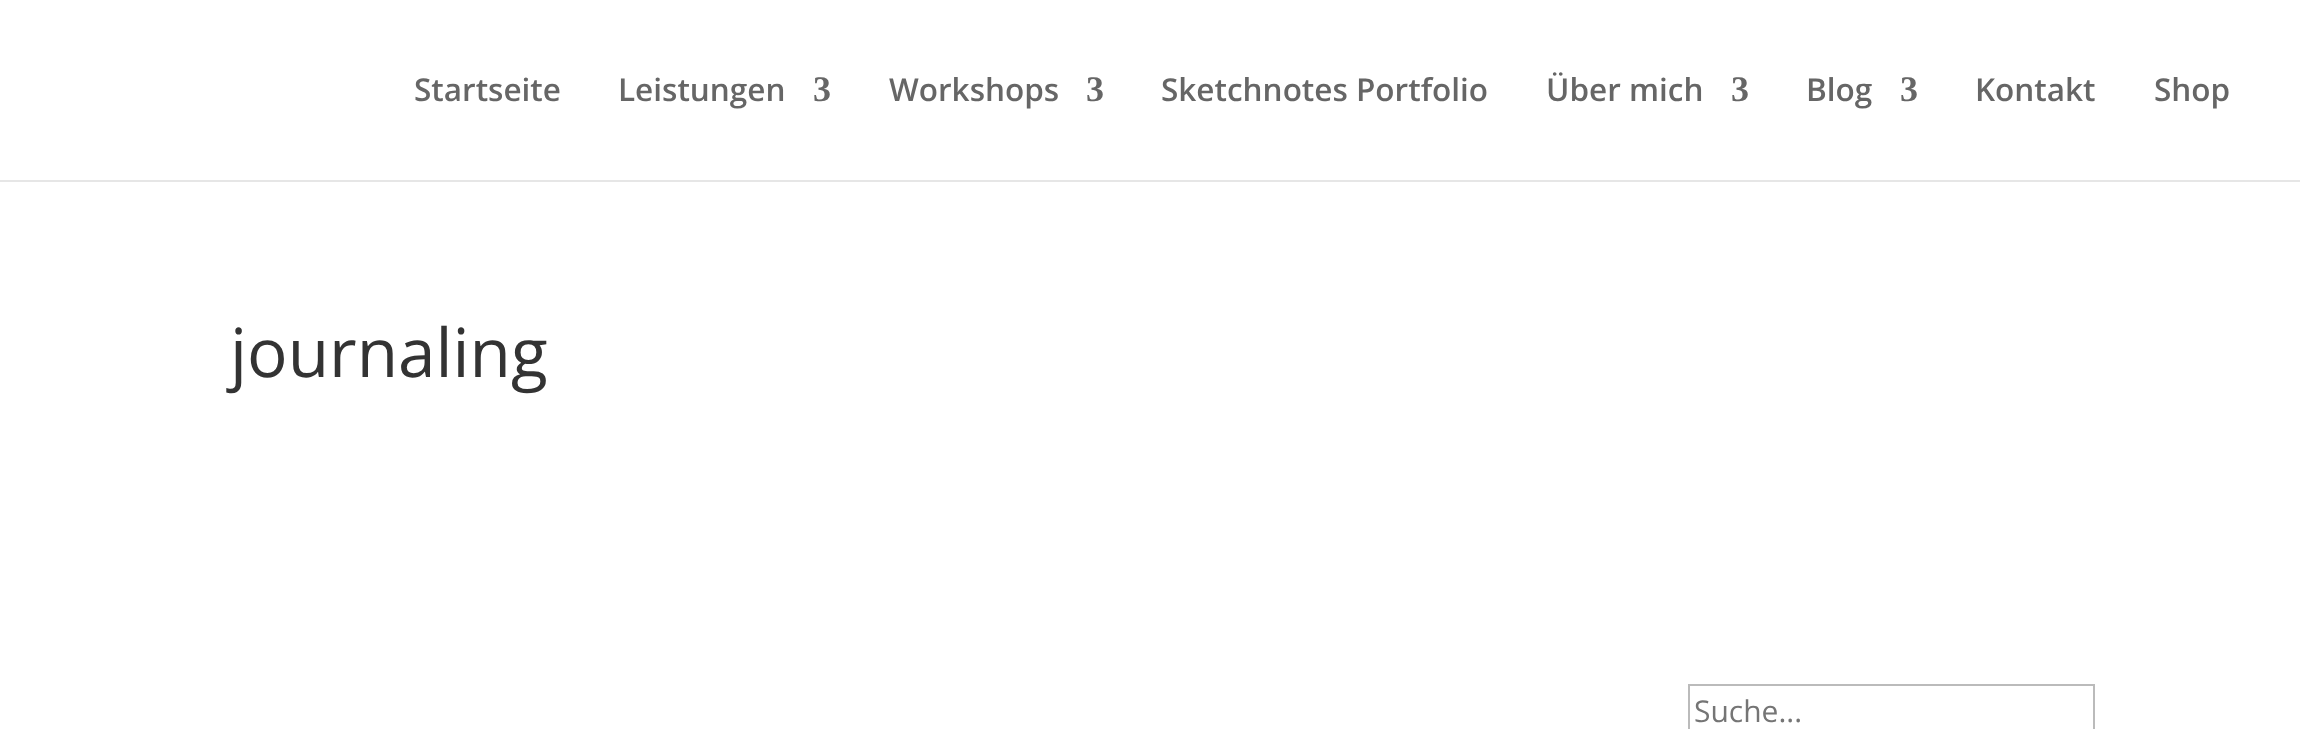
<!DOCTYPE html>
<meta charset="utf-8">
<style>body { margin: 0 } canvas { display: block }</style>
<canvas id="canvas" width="2300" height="729"></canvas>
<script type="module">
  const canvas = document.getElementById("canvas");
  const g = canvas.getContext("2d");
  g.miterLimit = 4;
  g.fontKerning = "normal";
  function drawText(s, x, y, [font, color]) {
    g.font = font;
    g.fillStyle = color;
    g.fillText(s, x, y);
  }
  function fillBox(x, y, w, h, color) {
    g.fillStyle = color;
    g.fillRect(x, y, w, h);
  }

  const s1 = ["600 31.5px Open Sans", "#666666"];
  const s2 = ["bold 36px Liberation Serif", "#666666"];
  const s3 = ["67.5px Open Sans", "#333333"];
  const s4 = ["30px Open Sans", "#757575"];

  fillBox(0, 0, 2300, 729, "#FFFFFF");
  g.fillStyle = "#E6E6E6";
  g.beginPath();
  g.moveTo(0, 180);
  g.lineTo(0, 182);
  g.lineTo(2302, 182);
  g.lineTo(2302, 2);
  g.lineTo(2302, 180);
  g.closePath();
  g.fill();
  drawText("Startseite", 414, 101, s1);
  drawText("Leistungen", 618, 101, s1);
  drawText("3", 813, 101, s2);
  drawText("Workshops", 889, 101, s1);
  drawText("3", 1086, 101, s2);
  drawText("Sketchnotes Portfolio", 1161, 101, s1);
  drawText("Über mich", 1546, 101, s1);
  drawText("3", 1731, 101, s2);
  drawText("Blog", 1806, 101, s1);
  drawText("3", 1900, 101, s2);
  drawText("Kontakt", 1975, 101, s1);
  drawText("Shop", 2154, 101, s1);
  drawText("journaling", 230, 377, s3);
  g.strokeStyle = "#BBBBBB";
  g.lineWidth = 2;
  g.strokeRect(1689, 685, 405, 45);
  drawText("Suche...", 1694, 722, s4);
</script>
